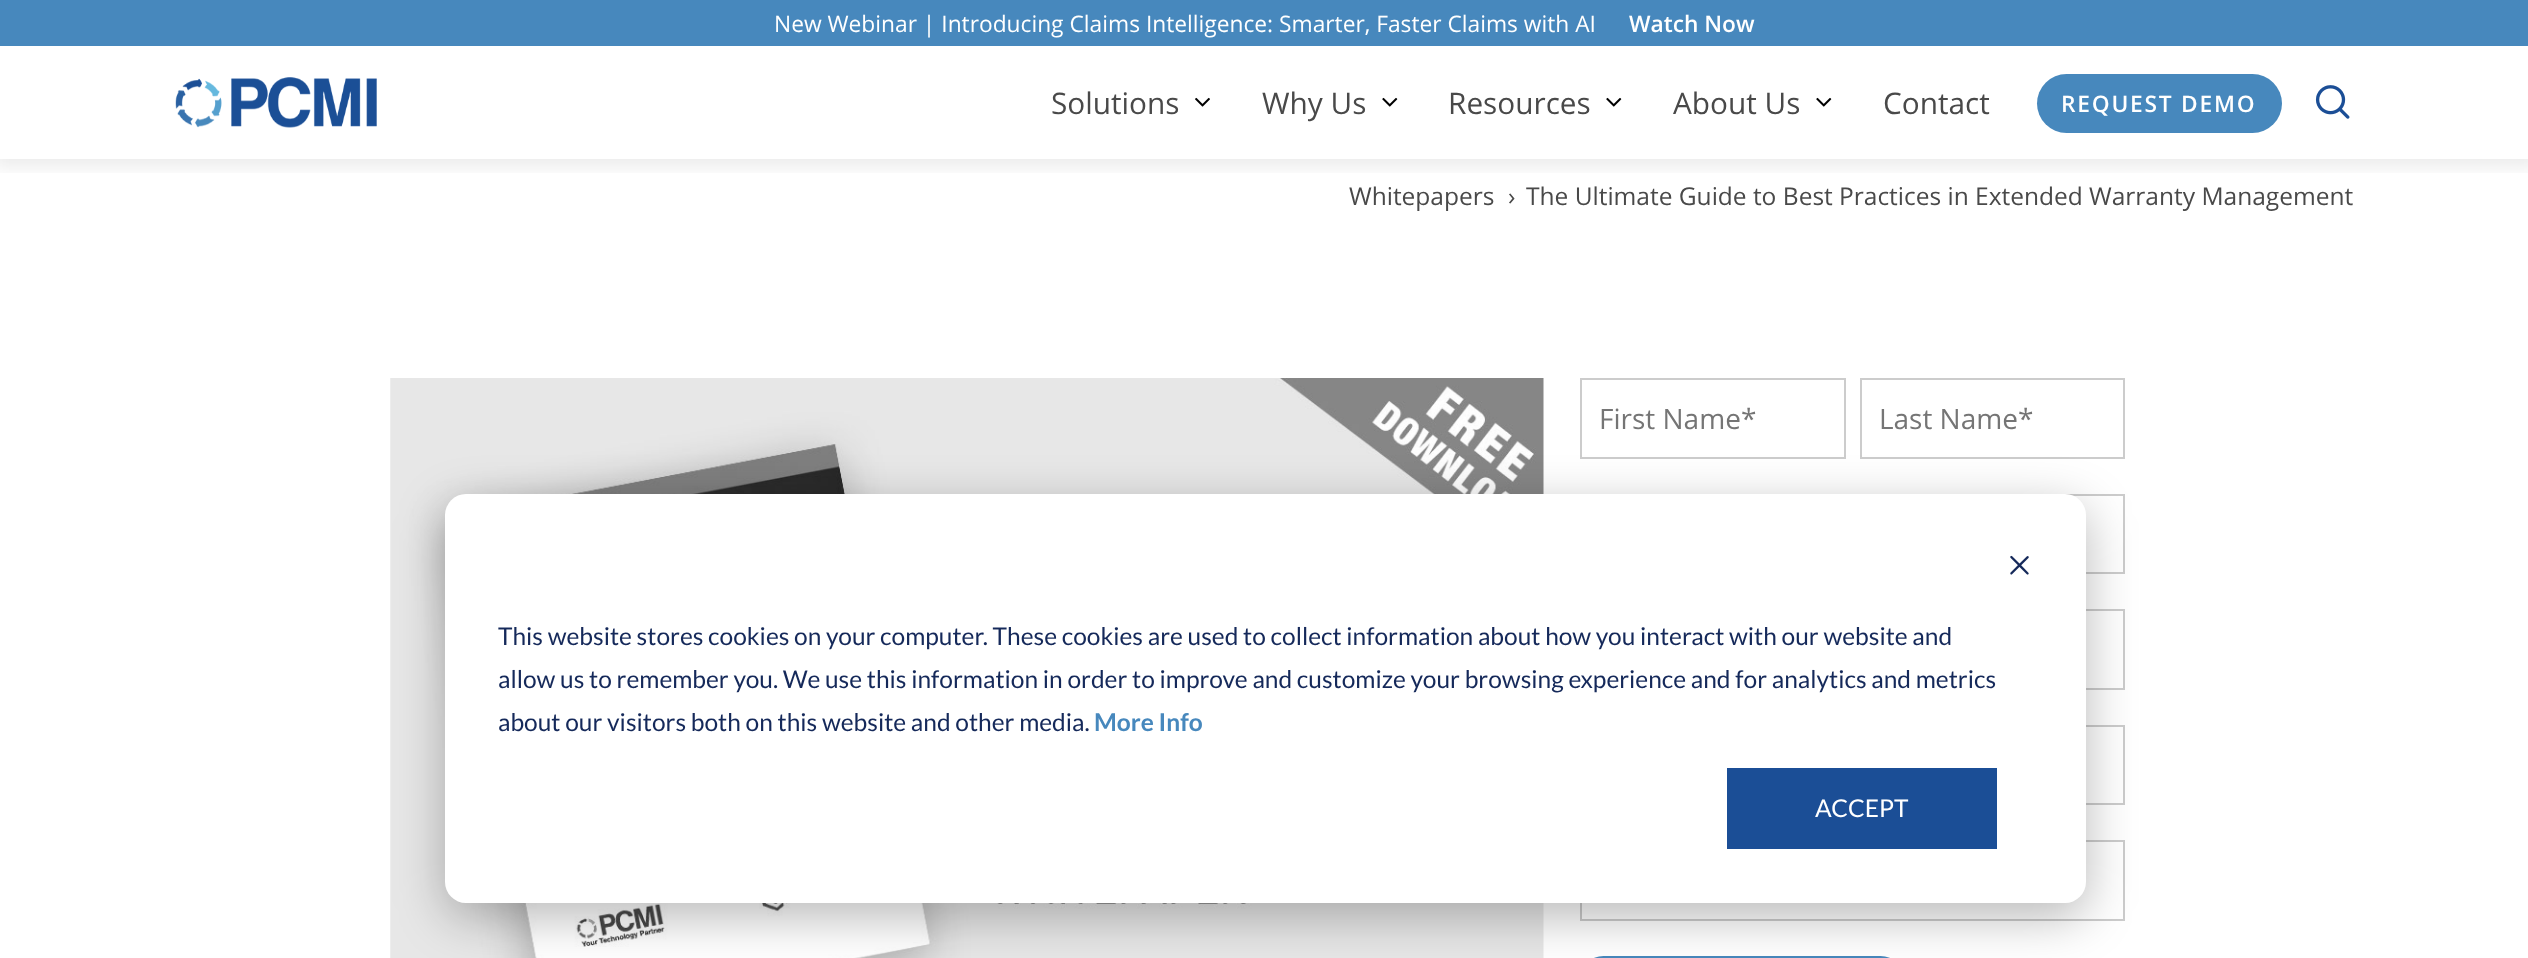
<!DOCTYPE html>
<meta charset="utf-8">
<style>body { margin: 0 } canvas { display: block }</style>
<canvas id="canvas" width="2528" height="958"></canvas>
<script type="module">
  const canvas = document.getElementById("canvas");
  const g = canvas.getContext("2d");
  g.miterLimit = 4;
  g.fontKerning = "normal";
  function drawText(s, x, y, [font, color]) {
    g.font = font;
    g.fillStyle = color;
    g.fillText(s, x, y);
  }
  function fillBox(x, y, w, h, color) {
    g.fillStyle = color;
    g.fillRect(x, y, w, h);
  }
  function fillRounded(x, y, w, h, r, color) {
    g.fillStyle = color;
    g.beginPath();
    g.roundRect(x, y, w, h, r);
    g.fill();
  }
  async function drawPicture(src, x, y, w, h) {
    const img = new Image();
    img.src = src;
    await img.decode();
    g.drawImage(img, x, y, w, h);
  }

  const s1 = ["22.75px Open Sans", "#FFFFFF"];
  const s2 = ["600 22.75px Open Sans", "#FFFFFF"];
  const s3 = ["29.75px Open Sans", "#494949"];
  const s4 = ["24.5px Open Sans", "#494949"];
  const s5 = ["28px Open Sans", "#757575"];
  const s6 = ["24.5px Lato", "#15295A"];
  const s7 = ["bold 24.5px Lato", "#4788BD"];
  const s8 = ["24.5px Lato", "#FFFFFF"];

  fillBox(0, 0, 2528, 958, "#FFFFFF");
  g.save();
  g.beginPath();
  g.rect(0, 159, 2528, 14);
  g.clip();
  g.fillStyle = "rgba(0, 0, 0, 0.07)";
  g.filter = "blur(8px)";
  g.beginPath();
  g.rect(-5, 40, 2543, 128);
  g.fill();
  g.filter = "none";
  g.restore();
  fillBox(0, 0, 2528, 46, "#4788BD");
  drawText("New Webinar | Introducing Claims Intelligence: Smarter, Faster Claims with AI", 774, 32, s1);
  drawText("Watch Now", 1629, 32, s2);
  await drawPicture("pic1.png", 175, 77, 202, 51);
  drawText("Solutions", 1051, 114, s3);
  await drawPicture("pic2.png", 1195, 97, 15, 10);
  drawText("Why Us", 1262, 114, s3);
  await drawPicture("pic3.png", 1382, 97, 16, 10);
  drawText("Resources", 1448, 114, s3);
  await drawPicture("pic3.png", 1606, 97, 16, 10);
  drawText("About Us", 1673, 114, s3);
  await drawPicture("pic3.png", 1816, 97, 16, 10);
  drawText("Contact", 1883, 114, s3);
  fillRounded(2037, 74, 245, 59, 29.5, "#4788BD");
  g.letterSpacing = "1.75px";
  drawText("REQUEST DEMO", 2061, 112, s2);
  await drawPicture("pic4.png", 2315, 85, 35, 34);
  g.letterSpacing = "0px";
  drawText("Whitepapers", 1349, 205, s4);
  drawText("›", 1508, 205, s4);
  drawText("The Ultimate Guide to Best Practices in Extended Warranty Management", 1526, 205, s4);
  await drawPicture("pic5.png", 390, 378, 1154, 580);
  g.strokeStyle = "#CCCCCC";
  g.lineWidth = 2;
  g.strokeRect(1581, 379, 264, 79);
  drawText("First Name*", 1599, 429, s5);
  g.strokeRect(1861, 379, 263, 79);
  drawText("Last Name*", 1879, 429, s5);
  g.strokeRect(1581, 495, 543, 78);
  g.strokeRect(1581, 610, 543, 79);
  g.strokeRect(1581, 726, 543, 78);
  g.strokeRect(1581, 841, 543, 79);
  fillRounded(1580, 956, 324, 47, 44.5, "#4788BD");
  g.fillStyle = "rgba(0, 0, 0, 0.28)";
  g.filter = "blur(24.5px)";
  g.beginPath();
  g.roundRect(445, 508, 1641, 409, 21);
  g.fill();
  g.filter = "none";
  fillRounded(445, 494, 1641, 409, 21, "#FFFFFF");
  await drawPicture("pic6.png", 2010, 555, 19, 20);
  drawText("This website stores cookies on your computer. These cookies are used to collect information about how you interact with our website and", 498, 645, s6);
  drawText("allow us to remember you. We use this information in order to improve and customize your browsing experience and for analytics and metrics", 498, 688, s6);
  drawText("about our visitors both on this website and other media.", 498, 731, s6);
  drawText("More Info", 1094, 731, s7);
  fillBox(1727, 768, 270, 81, "#1B4E96");
  drawText("ACCEPT", 1815, 817, s8);
</script>
